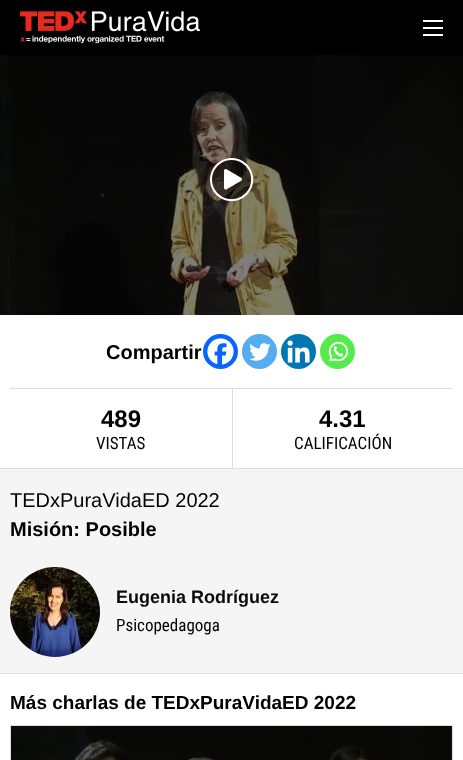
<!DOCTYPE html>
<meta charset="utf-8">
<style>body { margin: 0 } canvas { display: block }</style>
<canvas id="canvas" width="463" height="760"></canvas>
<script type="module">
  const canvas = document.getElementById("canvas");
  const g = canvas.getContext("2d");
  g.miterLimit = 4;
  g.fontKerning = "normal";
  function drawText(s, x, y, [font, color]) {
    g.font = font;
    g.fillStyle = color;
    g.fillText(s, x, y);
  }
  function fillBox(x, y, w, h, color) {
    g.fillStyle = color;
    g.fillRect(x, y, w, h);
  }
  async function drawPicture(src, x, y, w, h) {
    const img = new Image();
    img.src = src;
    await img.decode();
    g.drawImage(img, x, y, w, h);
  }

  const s1 = ["bold 20px Liberation Sans", "#000000"];
  const s2 = ["bold 24px Liberation Sans", "#000000"];
  const s3 = ["17px Roboto Condensed", "#000000"];
  const s4 = ["20px Liberation Sans", "#000000"];
  const s5 = ["bold 18px Liberation Sans", "#0A0A0A"];
  const s6 = ["bold 19px Liberation Sans", "#000000"];

  fillBox(0, 0, 463, 760, "#FFFFFF");
  fillBox(0, 0, 463, 315, "#000000");
  await drawPicture("pic1.png", 20, 11, 180, 33);
  fillBox(423, 34, 20, 2, "#FEFEFE");
  fillBox(423, 27, 20, 2, "#FEFEFE");
  fillBox(423, 20, 20, 2, "#FEFEFE");
  await drawPicture("pic2.png", 0, 55, 463, 260);
  await drawPicture("pic3.png", 210, 158, 44, 44);
  fillBox(0, 468, 463, 1, "#DDDDDD");
  fillBox(10, 388, 443, 1, "#DDDDDD");
  drawText("Compartir", 106, 359, s1);
  g.fillStyle = "#0765FE";
  g.beginPath();
  g.arc(220.5, 351.5, 17.5, 0, Math.PI * 2);
  g.fill();
  await drawPicture("pic4.png", 207, 338, 27, 27);
  g.fillStyle = "#55ACEE";
  g.beginPath();
  g.arc(259.5, 351.5, 17.5, 0, Math.PI * 2);
  g.fill();
  await drawPicture("pic5.png", 249, 343, 22, 18);
  g.fillStyle = "#0077B5";
  g.beginPath();
  g.arc(298.5, 351.5, 17.5, 0, Math.PI * 2);
  g.fill();
  await drawPicture("pic6.png", 287, 340, 23, 23);
  g.fillStyle = "#55EB4C";
  g.beginPath();
  g.arc(337.5, 351.5, 17.5, 0, Math.PI * 2);
  g.fill();
  await drawPicture("pic7.png", 328, 341, 20, 21);
  drawText("489", 101, 427, s2);
  drawText("VISTAS", 96, 449, s3);
  fillBox(232, 389, 1, 79, "#DDDDDD");
  drawText("4.31", 319, 427, s2);
  drawText("CALIFICACIÓN", 294, 449, s3);
  fillBox(0, 469, 463, 204, "#F5F5F5");
  drawText("TEDxPuraVidaED 2022", 10, 507, s4);
  drawText("Misión: Posible", 10, 536, s1);
  fillBox(0, 673, 463, 1, "#DDDDDD");
  await drawPicture("pic8.png", 10, 567, 90, 90);
  drawText("Eugenia Rodríguez", 116, 603, s5);
  drawText("Psicopedagoga", 116, 631, s3);
  drawText("Más charlas de TEDxPuraVidaED 2022", 10, 709, s6);
  g.strokeStyle = "#DDDDDD";
  g.strokeRect(10.5, 725.5, 442, 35);
  await drawPicture("pic9.png", 11, 726, 441, 34);
</script>
